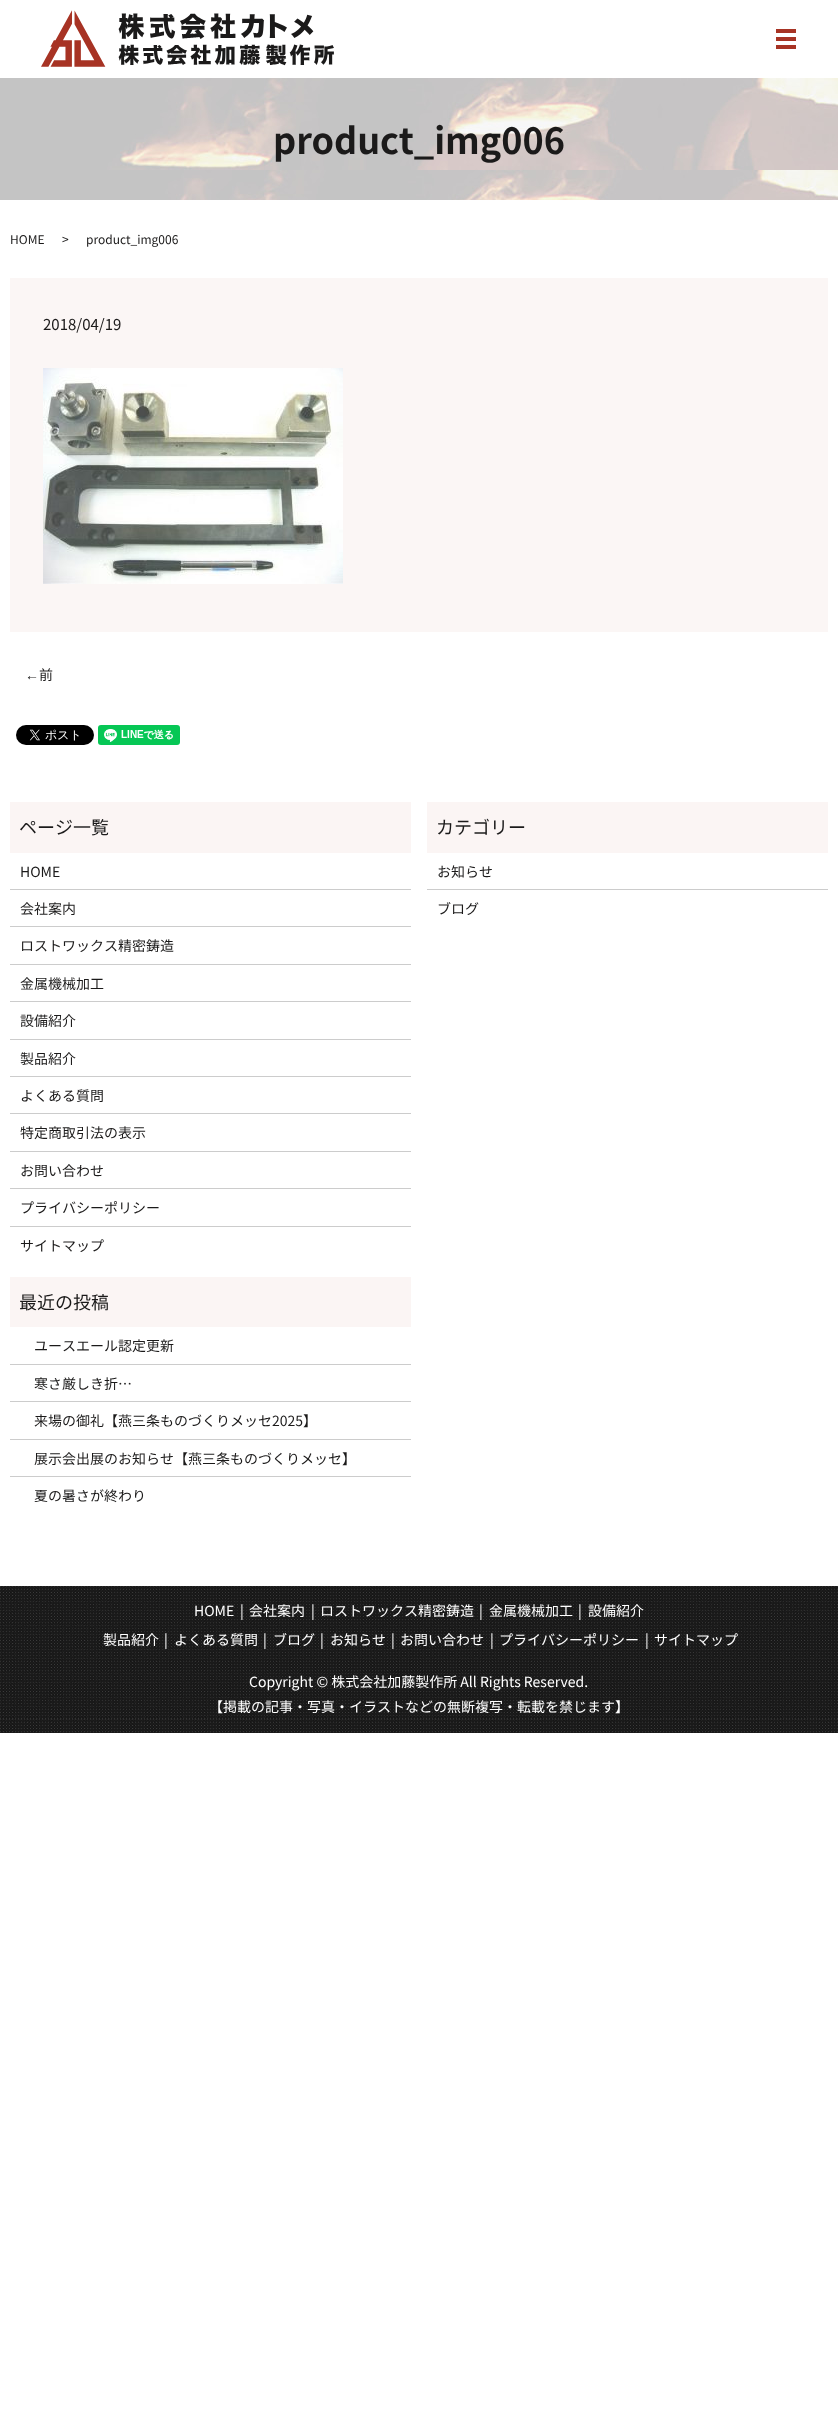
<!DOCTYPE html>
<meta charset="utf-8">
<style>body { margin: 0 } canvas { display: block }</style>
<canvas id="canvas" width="838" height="2424"></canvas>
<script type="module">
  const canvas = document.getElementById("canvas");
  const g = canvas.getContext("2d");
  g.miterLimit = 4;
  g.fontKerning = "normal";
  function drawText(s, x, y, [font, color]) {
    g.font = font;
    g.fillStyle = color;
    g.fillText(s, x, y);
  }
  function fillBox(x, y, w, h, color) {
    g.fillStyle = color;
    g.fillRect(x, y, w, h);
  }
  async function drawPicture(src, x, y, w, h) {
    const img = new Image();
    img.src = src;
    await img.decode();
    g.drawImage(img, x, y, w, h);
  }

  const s1 = ["bold 36px Noto Sans JP", "#1B1A1A"];
  const s2 = ["12px Noto Sans JP", "#1B1A1A"];
  const s3 = ["15px Noto Sans JP", "#1B1A1A"];
  const s4 = ["14px Liberation Sans", "#1B1A1A"];
  const s5 = ["14px Noto Sans JP", "#1B1A1A"];
  const s6 = ["18px Noto Sans JP", "#1B1A1A"];
  const s7 = ["14px Noto Sans JP", "#FFFFFF"];

  fillBox(0, 0, 838, 2424, "#FFFFFF");
  await drawPicture("pic1.png", 41, 10, 293, 57);
  fillBox(776, 29, 20, 4, "#A73324");
  fillBox(776, 37, 20, 4, "#A73324");
  fillBox(776, 45, 20, 4, "#A73324");
  await drawPicture("pic2.png", 0, 78, 838, 122);
  drawText("product_img006", 273, 154, s1);
  drawText("HOME", 10, 244, s2);
  drawText(">", 62, 244, s2);
  drawText("product_img006", 86, 244, s2);
  fillBox(10, 278, 818, 354, "#FBF6F5");
  drawText("2018/04/19", 43, 330, s3);
  await drawPicture("pic3.png", 43, 368, 300, 216);
  drawText("←", 25, 680, s4);
  drawText("前", 39, 680, s5);
  await drawPicture("pic4.png", 16, 725, 78, 20);
  await drawPicture("pic5.png", 98, 725, 82, 20);
  fillBox(10, 802, 401, 51, "#FBF5F4");
  drawText("ページ一覧", 19, 834, s6);
  fillBox(10, 889, 401, 1, "#CCCCCC");
  drawText("HOME", 20, 877, s5);
  fillBox(10, 926, 401, 1, "#CCCCCC");
  drawText("会社案内", 20, 914, s5);
  fillBox(10, 964, 401, 1, "#CCCCCC");
  drawText("ロストワックス精密鋳造", 20, 951, s5);
  fillBox(10, 1001, 401, 1, "#CCCCCC");
  drawText("金属機械加工", 20, 989, s5);
  fillBox(10, 1039, 401, 1, "#CCCCCC");
  drawText("設備紹介", 20, 1026, s5);
  fillBox(10, 1076, 401, 1, "#CCCCCC");
  drawText("製品紹介", 20, 1064, s5);
  fillBox(10, 1113, 401, 1, "#CCCCCC");
  drawText("よくある質問", 20, 1101, s5);
  fillBox(10, 1151, 401, 1, "#CCCCCC");
  drawText("特定商取引法の表示", 20, 1138, s5);
  fillBox(10, 1188, 401, 1, "#CCCCCC");
  drawText("お問い合わせ", 20, 1176, s5);
  fillBox(10, 1226, 401, 1, "#CCCCCC");
  drawText("プライバシーポリシー", 20, 1213, s5);
  drawText("サイトマップ", 20, 1251, s5);
  fillBox(427, 802, 401, 51, "#FBF5F4");
  drawText("カテゴリー", 436, 834, s6);
  fillBox(427, 889, 401, 1, "#CCCCCC");
  drawText("お知らせ", 437, 877, s5);
  drawText("ブログ", 437, 914, s5);
  fillBox(10, 1277, 401, 50, "#FBF5F4");
  drawText("最近の投稿", 19, 1309, s6);
  fillBox(10, 1364, 401, 1, "#CCCCCC");
  drawText("ユースエール認定更新", 34, 1351, s5);
  fillBox(10, 1401, 401, 1, "#CCCCCC");
  drawText("寒さ厳しき折…", 34, 1389, s5);
  fillBox(10, 1439, 401, 1, "#CCCCCC");
  drawText("来場の御礼【燕三条ものづくりメッセ2025】", 34, 1426, s5);
  fillBox(10, 1476, 401, 1, "#CCCCCC");
  drawText("展示会出展のお知らせ【燕三条ものづくりメッセ】", 34, 1464, s5);
  drawText("夏の暑さが終わり", 34, 1501, s5);
  await drawPicture("pic6.png", 0, 1586, 838, 147);
  drawText("HOME", 194, 1616, s7);
  drawText("|", 240, 1616, s7);
  drawText("会社案内", 249, 1616, s7);
  drawText("|", 311, 1616, s7);
  drawText("ロストワックス精密鋳造", 320, 1616, s7);
  drawText("|", 479, 1616, s7);
  drawText("金属機械加工", 489, 1616, s7);
  drawText("|", 578, 1616, s7);
  drawText("設備紹介", 588, 1616, s7);
  drawText("製品紹介", 103, 1645, s7);
  drawText("|", 164, 1645, s7);
  drawText("よくある質問", 174, 1645, s7);
  drawText("|", 263, 1645, s7);
  drawText("ブログ", 273, 1645, s7);
  drawText("|", 320, 1645, s7);
  drawText("お知らせ", 330, 1645, s7);
  drawText("|", 391, 1645, s7);
  drawText("お問い合わせ", 400, 1645, s7);
  drawText("|", 490, 1645, s7);
  drawText("プライバシーポリシー", 499, 1645, s7);
  drawText("|", 645, 1645, s7);
  drawText("サイトマップ", 654, 1645, s7);
  drawText("Copyright © 株式会社加藤製作所 All Rights Reserved.", 249, 1687, s7);
  drawText("【掲載の記事・写真・イラストなどの無断複写・転載を禁じます】", 209, 1712, s7);
</script>
